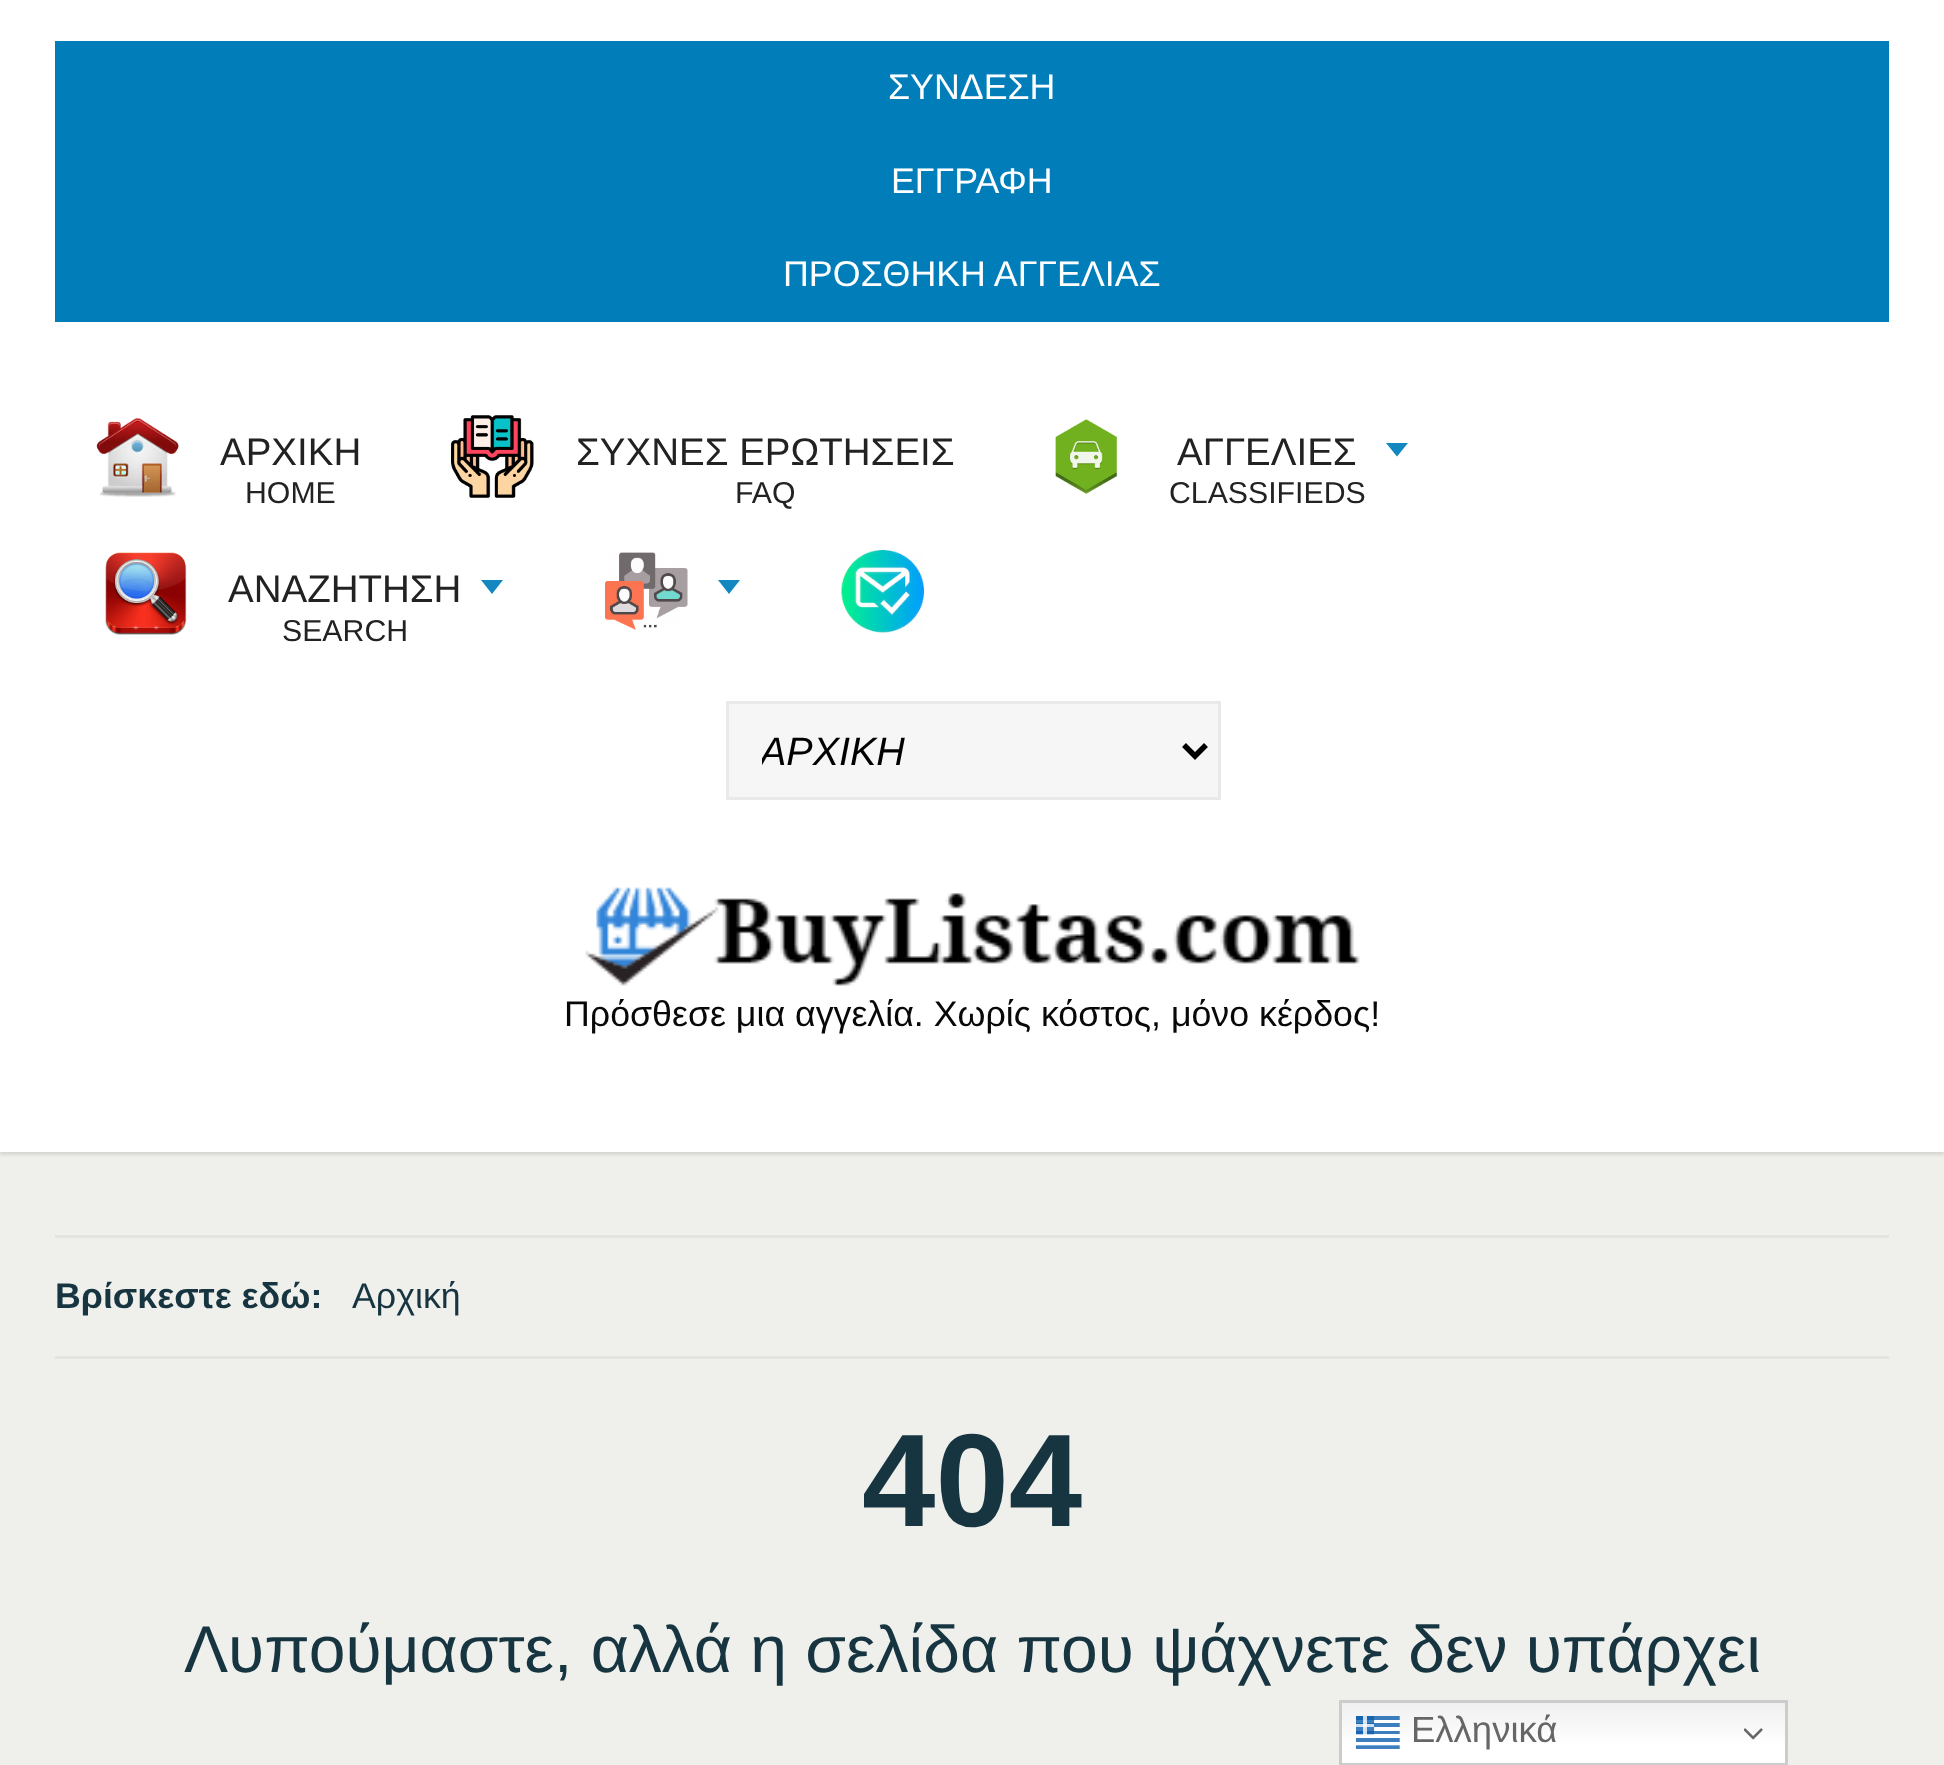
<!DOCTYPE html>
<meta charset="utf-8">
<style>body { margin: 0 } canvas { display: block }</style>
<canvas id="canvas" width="1944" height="1765"></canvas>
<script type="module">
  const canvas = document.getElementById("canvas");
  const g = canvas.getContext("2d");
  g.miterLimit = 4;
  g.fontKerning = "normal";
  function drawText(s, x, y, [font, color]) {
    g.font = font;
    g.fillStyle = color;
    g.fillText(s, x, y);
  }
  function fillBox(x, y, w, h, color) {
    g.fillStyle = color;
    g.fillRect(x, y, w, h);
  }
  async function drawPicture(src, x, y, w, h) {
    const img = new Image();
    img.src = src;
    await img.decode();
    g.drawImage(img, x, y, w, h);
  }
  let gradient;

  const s1 = ["35.75px Liberation Sans", "#FFFFFF"];
  const s2 = ["38.5px Liberation Sans", "#222222"];
  const s3 = ["30.25px Liberation Sans", "#222222"];
  const s4 = ["italic 39.5px Liberation Sans", "#000000"];
  const s5 = ["35.75px Liberation Sans", "#080808"];
  const s6 = ["bold 35.75px Liberation Sans", "#173540"];
  const s7 = ["35.75px Liberation Sans", "#173540"];
  const s8 = ["bold 132px Liberation Sans", "#173540"];
  const s9 = ["66px Liberation Sans", "#173540"];
  const s10 = ["36.5px Liberation Sans", "#666666"];

  fillBox(0, 0, 1944, 1765, "#EFEFEB");
  g.fillStyle = "rgba(0, 0, 0, 0.1)";
  g.filter = "blur(1.5px)";
  g.beginPath();
  g.rect(0, 3, 1944, 1152);
  g.fill();
  g.filter = "none";
  fillBox(0, 0, 1944, 1152, "#FFFFFF");
  fillBox(55, 41, 1834, 281, "#017EBA");
  drawText("ΣΥΝΔΕΣΗ", 888, 99, s1);
  drawText("ΕΓΓΡΑΦΗ", 891, 193, s1);
  drawText("ΠΡΟΣΘΗΚΗ ΑΓΓΕΛΙΑΣ", 783, 286, s1);
  await drawPicture("pic1.png", 96, 417, 83, 80);
  drawText("ΑΡΧΙΚΗ", 220, 465, s2);
  drawText("HOME", 245, 503, s3);
  await drawPicture("pic2.png", 451, 415, 83, 83);
  drawText("ΣΥΧΝΕΣ ΕΡΩΤΗΣΕΙΣ", 576, 465, s2);
  drawText("FAQ", 735, 503, s3);
  await drawPicture("pic3.png", 1055, 419, 63, 75);
  drawText("ΑΓΓΕΛΙΕΣ", 1177, 465, s2);
  drawText("CLASSIFIEDS", 1169, 503, s3);
  g.fillStyle = "#1387BF";
  g.beginPath();
  g.moveTo(1386, 443);
  g.lineTo(1408, 443);
  g.lineTo(1397, 456.5);
  g.closePath();
  g.fill();
  await drawPicture("pic4.png", 105, 552, 82, 83);
  drawText("ΑΝΑΖΗΤΗΣΗ", 228, 602, s2);
  drawText("SEARCH", 282, 641, s3);
  g.fillStyle = "#1387BF";
  g.beginPath();
  g.moveTo(481, 580);
  g.lineTo(503, 580);
  g.lineTo(492, 594);
  g.closePath();
  g.fill();
  await drawPicture("pic5.png", 605, 552, 83, 78);
  g.beginPath();
  g.moveTo(718, 580);
  g.lineTo(740, 580);
  g.lineTo(729, 594);
  g.closePath();
  g.fill();
  await drawPicture("pic6.png", 841, 550, 83, 83);
  g.fillStyle = "#F6F6F6";
  g.beginPath();
  g.rect(727.5, 702.5, 492, 96);
  g.fill();
  g.strokeStyle = "#E9E9E9";
  g.lineWidth = 3;
  g.stroke();
  g.beginPath();
  g.moveTo(1184, 745);
  g.lineTo(1195, 756);
  g.lineTo(1206, 745);
  g.strokeStyle = "#000000";
  g.lineWidth = 5.5;
  g.stroke();
  g.save();
  g.beginPath();
  g.rect(762, 726, 390, 50);
  g.clip();
  drawText("ΑΡΧΙΚΗ", 760, 765, s4);
  g.restore();
  await drawPicture("pic7.png", 585, 887, 775, 99);
  drawText("Πρόσθεσε μια αγγελία. Χωρίς κόστος, μόνο κέρδος!", 564, 1026, s5);
  fillBox(55, 1235, 1834, 3, "#E3E3DF");
  fillBox(55, 1356, 1834, 3, "#E3E3DF");
  drawText("Βρίσκεστε εδώ:", 55, 1308, s6);
  drawText("Αρχική", 352, 1308, s7);
  drawText("404", 862, 1526, s8);
  drawText("Λυπούμαστε, αλλά η σελίδα που ψάχνετε δεν υπάρχει", 184, 1672, s9);
  gradient = g.createLinearGradient(1563, 1700, 1563, 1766);
  gradient.addColorStop(0, "#EFEFEF");
  gradient.addColorStop(0.7, "#FFFFFF");
  g.fillStyle = gradient;
  g.fillRect(1342, 1703, 443, 60);
  g.strokeStyle = "#CCCCCC";
  g.lineWidth = 3;
  g.strokeRect(1340.5, 1701.5, 446, 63);
  await drawPicture("pic8.png", 1356, 1716, 44, 33);
  drawText("Ελληνικά", 1411, 1742, s10);
  await drawPicture("pic9.png", 1744, 1728, 19, 12);
</script>
